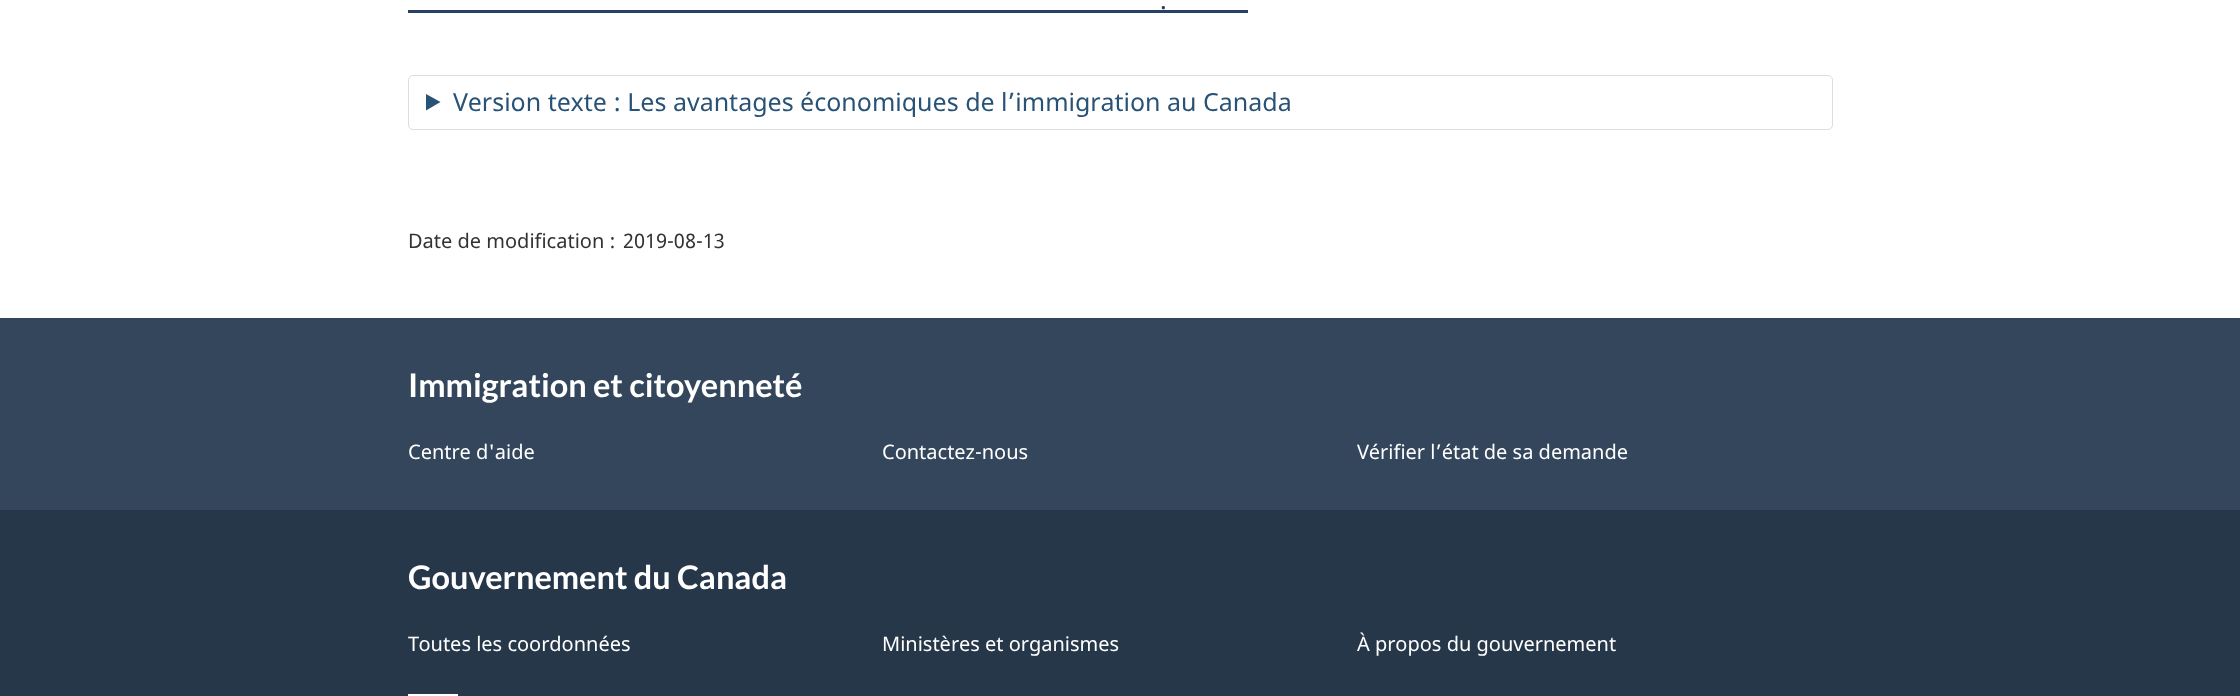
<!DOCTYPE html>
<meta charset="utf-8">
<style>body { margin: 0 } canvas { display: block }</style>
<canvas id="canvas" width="2240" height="696"></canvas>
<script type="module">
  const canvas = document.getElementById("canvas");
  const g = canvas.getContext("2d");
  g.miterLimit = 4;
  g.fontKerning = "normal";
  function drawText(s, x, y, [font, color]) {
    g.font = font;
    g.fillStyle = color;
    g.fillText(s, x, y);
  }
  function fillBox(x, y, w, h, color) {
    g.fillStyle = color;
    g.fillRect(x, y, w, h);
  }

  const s1 = ["25px Noto Sans", "#284162"];
  const s2 = ["25px Noto Sans", "#295376"];
  const s3 = ["20px Noto Sans", "#333333"];
  const s4 = ["bold 32.5px Lato", "#FFFFFF"];
  const s5 = ["20px Noto Sans", "#FFFFFF"];

  fillBox(0, 0, 2240, 696, "#FFFFFF");
  drawText(".", 1160, 9, s1);
  fillBox(408, 10, 840, 3, "#284162");
  g.beginPath();
  g.roundRect(408.5, 75.5, 1424, 54, 4.5);
  g.strokeStyle = "#DDDDDD";
  g.stroke();
  g.fillStyle = "#295376";
  g.beginPath();
  g.moveTo(426, 94);
  g.lineTo(440.5, 102);
  g.lineTo(426, 110.5);
  g.closePath();
  g.fill();
  drawText("Version texte : Les avantages économiques de l’immigration au Canada", 453, 111, s2);
  drawText("Date de modification :", 408, 248, s3);
  drawText("2019-08-13", 623, 248, s3);
  fillBox(0, 318, 2240, 192, "#33465C");
  drawText("Immigration et citoyenneté", 408, 397, s4);
  drawText("Centre d'aide", 408, 459, s5);
  drawText("Contactez-nous", 882, 459, s5);
  drawText("Vérifier l’état de sa demande", 1357, 459, s5);
  fillBox(0, 510, 2240, 186, "#26374A");
  drawText("Gouvernement du Canada", 408, 589, s4);
  drawText("Toutes les coordonnées", 408, 651, s5);
  drawText("Ministères et organismes", 882, 651, s5);
  drawText("À propos du gouvernement", 1357, 651, s5);
  fillBox(408, 694, 50, 2, "#FFFFFF");
</script>
